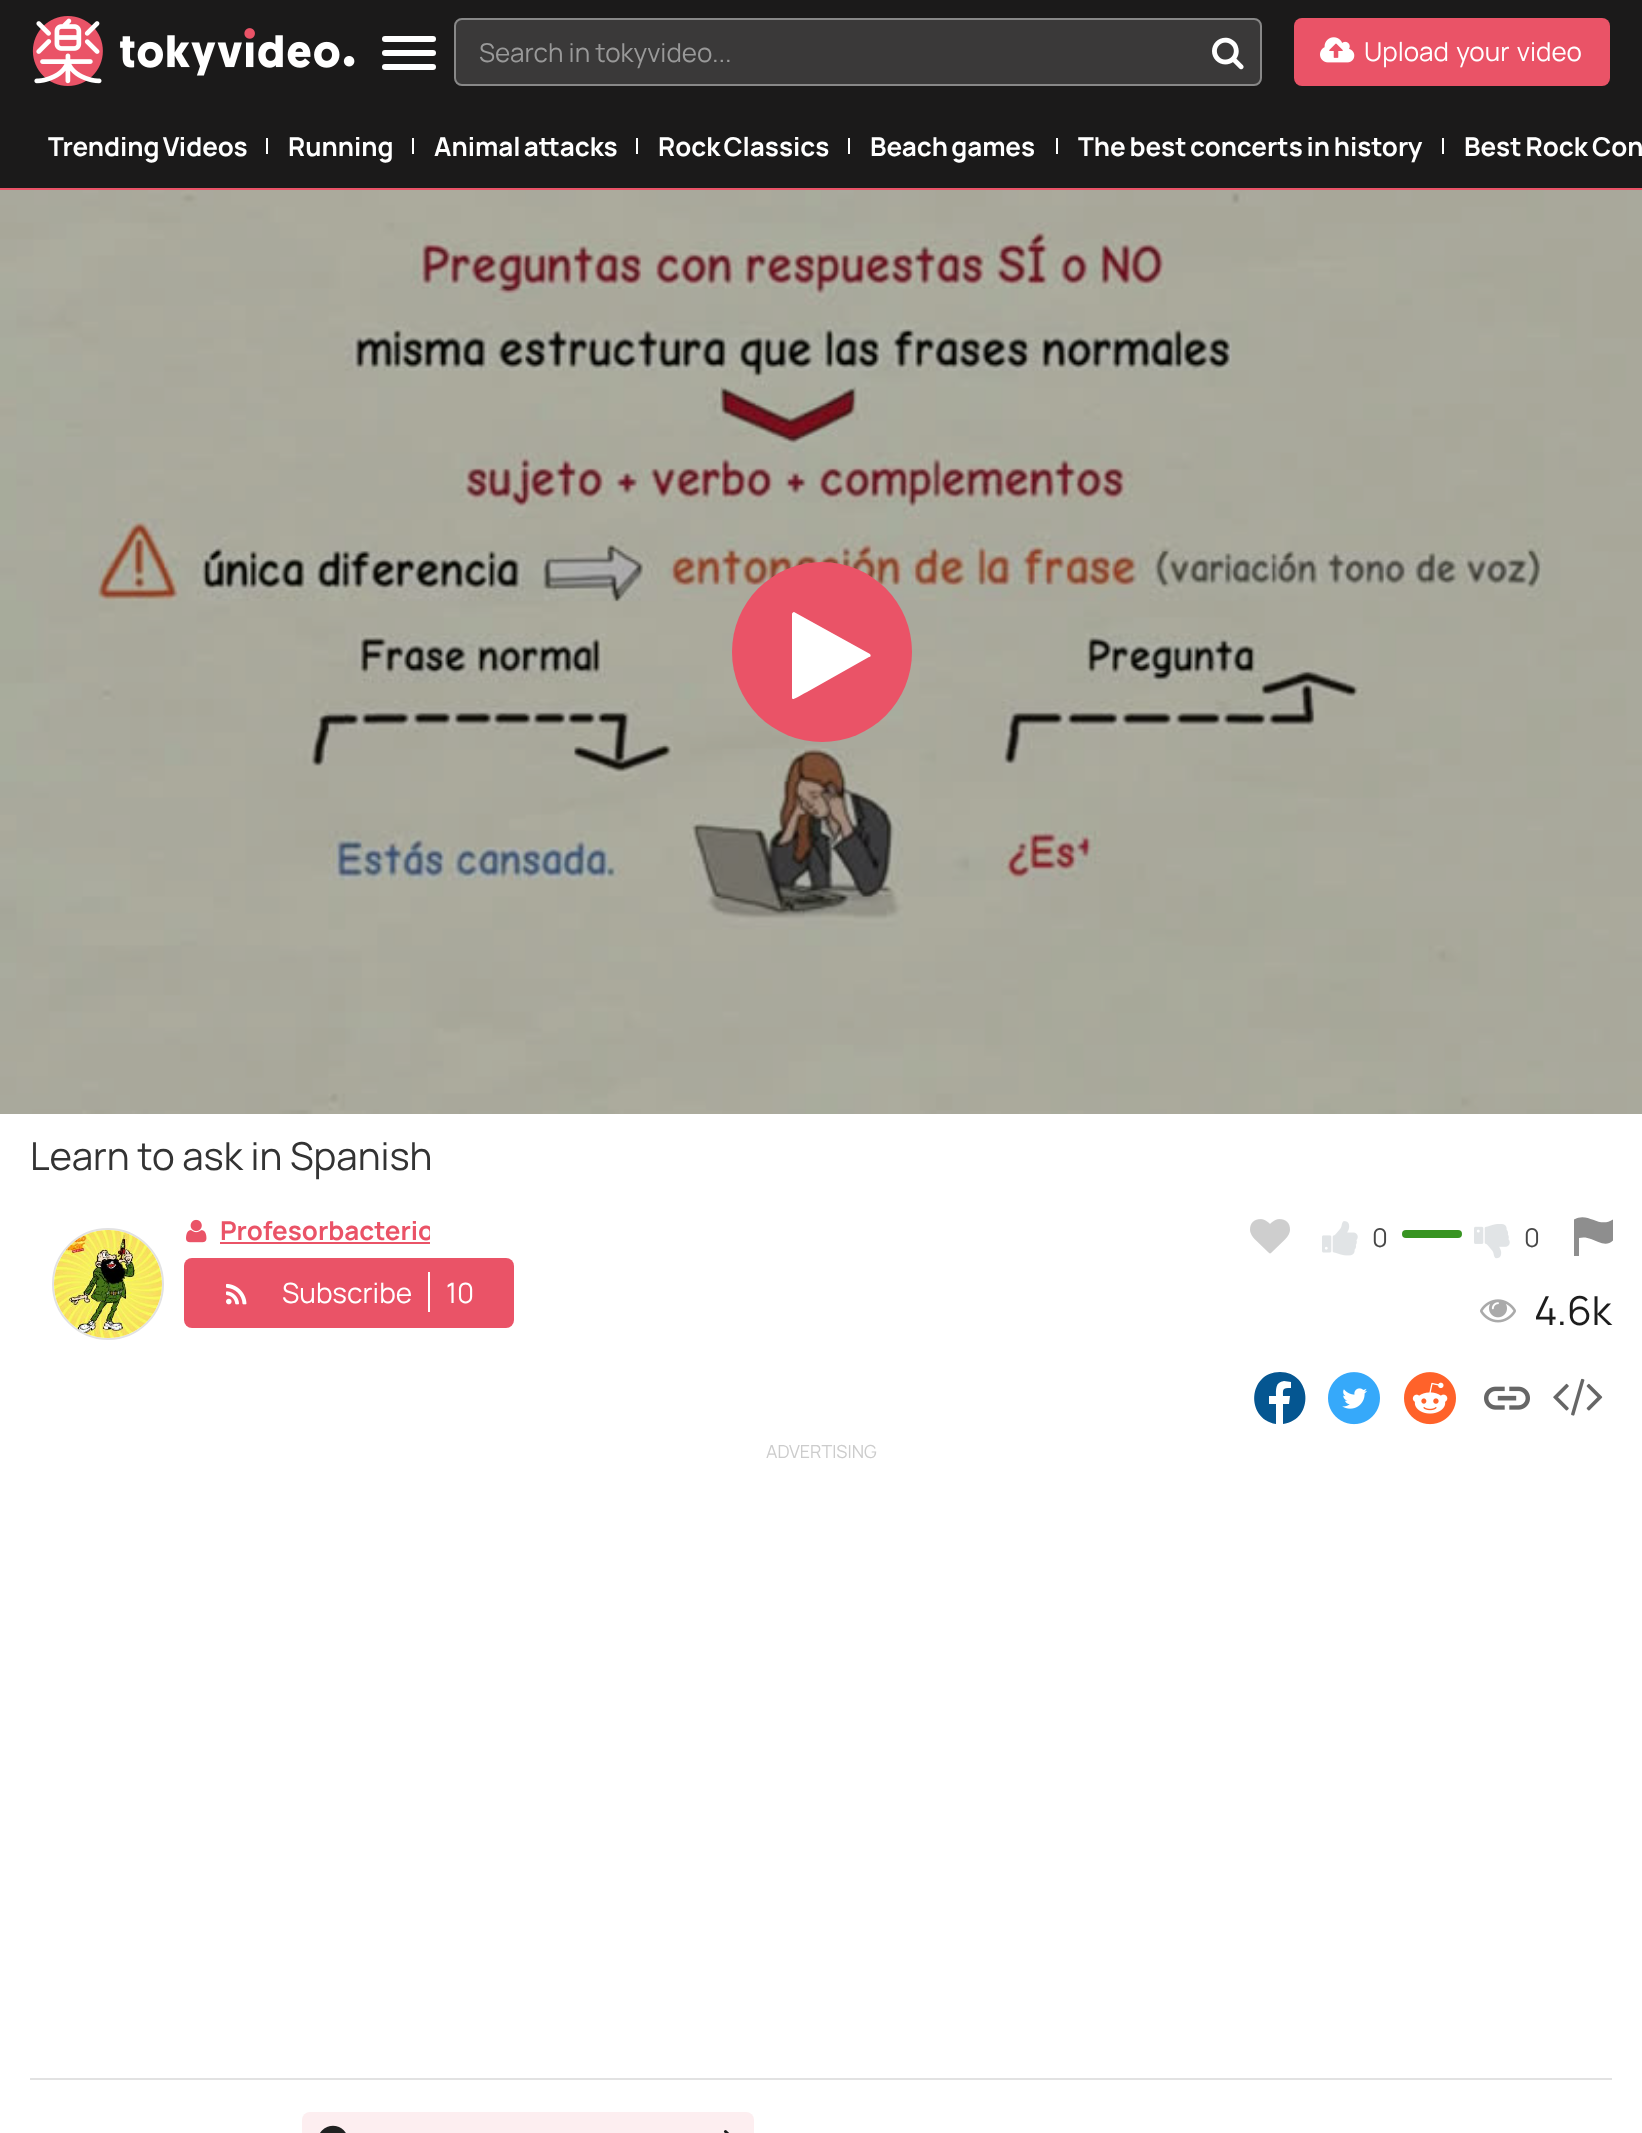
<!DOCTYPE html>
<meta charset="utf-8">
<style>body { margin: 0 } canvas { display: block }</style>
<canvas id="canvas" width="1642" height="2133"></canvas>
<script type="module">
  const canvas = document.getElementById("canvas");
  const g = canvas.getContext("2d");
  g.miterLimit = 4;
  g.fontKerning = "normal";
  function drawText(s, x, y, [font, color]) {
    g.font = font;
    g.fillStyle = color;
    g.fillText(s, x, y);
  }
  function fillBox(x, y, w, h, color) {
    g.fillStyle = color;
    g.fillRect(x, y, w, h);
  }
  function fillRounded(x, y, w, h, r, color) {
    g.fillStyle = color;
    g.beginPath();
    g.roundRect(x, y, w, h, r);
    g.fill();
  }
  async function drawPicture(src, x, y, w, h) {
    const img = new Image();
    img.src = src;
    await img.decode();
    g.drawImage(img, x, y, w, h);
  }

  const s1 = ["26px Manrope", "#999999"];
  const s2 = ["26px Manrope", "#FFFFFF"];
  const s3 = ["bold 26px Manrope", "#FFFFFF"];
  const s4 = ["38.4px Manrope", "#333333"];
  const s5 = ["bold 26px Manrope", "#EA5367"];
  const s6 = ["28px Manrope", "#FFFFFF"];
  const s7 = ["26px Manrope", "#484848"];
  const s8 = ["40px Manrope", "#1D1D1D"];
  const s9 = ["18px Manrope", "#CCCCCC"];

  fillBox(0, 0, 1642, 2133, "#FFFFFF");
  fillBox(0, 0, 1642, 188, "#1B1A1A");
  await drawPicture("pic1.png", 32, 16, 323, 70);
  fillRounded(382, 50, 54, 6, 3, "#FFFFFF");
  fillRounded(382, 36, 54, 6, 3, "#FFFFFF");
  fillRounded(382, 64, 54, 6, 3, "#FFFFFF");
  fillRounded(454, 18, 808, 68, 8, "#3A3939");
  g.beginPath();
  g.roundRect(455, 19, 806, 66, 7);
  g.strokeStyle = "rgba(255, 255, 255, 0.4)";
  g.lineWidth = 2;
  g.stroke();
  drawText("Search in tokyvideo...", 479, 62, s1);
  await drawPicture("pic2.png", 1212, 37, 32, 33);
  fillRounded(1294, 18, 316, 68, 8, "#EA5367");
  await drawPicture("pic3.png", 1320, 37, 35, 26);
  g.wordSpacing = "2px";
  drawText("Upload your video", 1364, 61, s2);
  fillBox(0, 188, 1642, 2, "#EA5367");
  g.wordSpacing = "-2px";
  drawText("Trending Videos", 48, 156, s3);
  fillBox(266, 138, 2, 16, "#FFFFFF");
  g.wordSpacing = "0px";
  drawText("Running", 288, 156, s3);
  fillBox(412, 138, 2, 16, "#FFFFFF");
  g.wordSpacing = "-2px";
  drawText("Animal attacks", 434, 156, s3);
  fillBox(636, 138, 2, 16, "#FFFFFF");
  drawText("Rock Classics", 658, 156, s3);
  fillBox(848, 138, 2, 16, "#FFFFFF");
  drawText("Beach games", 870, 156, s3);
  fillBox(1056, 138, 2, 16, "#FFFFFF");
  g.wordSpacing = "-1.5px";
  drawText("The best concerts in history", 1078, 156, s3);
  fillBox(1442, 138, 2, 16, "#FFFFFF");
  g.wordSpacing = "-1px";
  drawText("Best Rock Con", 1464, 156, s3);
  await drawPicture("pic4.png", 0, 190, 1642, 924);
  g.fillStyle = "#EA5367";
  g.beginPath();
  g.arc(822, 652, 90, 0, Math.PI * 2);
  g.fill();
  g.fillStyle = "#FFFFFF";
  g.beginPath();
  g.moveTo(869, 657);
  g.lineTo(807, 692);
  g.bezierCurveTo(794, 699, 792, 701, 792, 697);
  g.lineTo(792, 614);
  g.bezierCurveTo(792, 613, 793, 612, 794, 612);
  g.lineTo(870, 654);
  g.bezierCurveTo(871, 655, 871, 657, 869, 657);
  g.closePath();
  g.fill();
  g.wordSpacing = "0px";
  drawText("Learn to ask in Spanish", 30, 1170, s4);
  g.beginPath();
  g.arc(108, 1284, 55, 0, Math.PI * 2);
  g.strokeStyle = "#E2E2E2";
  g.stroke();
  await drawPicture("pic5.png", 54, 1230, 108, 108);
  await drawPicture("pic6.png", 186, 1219, 21, 24);
  g.save();
  g.beginPath();
  g.rect(220, 1210, 210, 42);
  g.clip();
  drawText("Profesorbacterio", 220, 1240, s5);
  g.restore();
  fillBox(220, 1242, 210, 2, "#EA5367");
  fillRounded(184, 1258, 330, 70, 8, "#EA5367");
  await drawPicture("pic7.png", 226, 1283, 21, 22);
  drawText("Subscribe", 282, 1303, s6);
  fillBox(428, 1272, 2, 40, "#FFFFFF");
  drawText("10", 446, 1303, s6);
  await drawPicture("pic8.png", 1250, 1219, 40, 35);
  await drawPicture("pic9.png", 1322, 1221, 36, 35);
  drawText("0", 1372, 1247, s7);
  fillRounded(1402, 1230, 60, 8, 4, "#389422");
  await drawPicture("pic10.png", 1474, 1224, 36, 35);
  drawText("0", 1524, 1247, s7);
  g.fillStyle = "#8E8E8E";
  g.beginPath();
  g.moveTo(1574, 1219.5);
  g.lineTo(1574, 1256);
  g.lineTo(1579, 1256);
  g.lineTo(1579, 1238);
  g.bezierCurveTo(1583, 1237, 1587.5, 1237.5, 1591, 1239);
  g.bezierCurveTo(1598.5, 1241.5, 1606, 1247.5, 1613, 1240.5);
  g.lineTo(1613, 1219.5);
  g.bezierCurveTo(1598.5, 1229, 1588.5, 1211, 1574, 1219.5);
  g.closePath();
  g.fill();
  await drawPicture("pic11.png", 1480, 1299, 36, 24);
  drawText("4.6k", 1534, 1325, s8);
  g.fillStyle = "#055691";
  g.beginPath();
  g.moveTo(1280, 1372);
  g.bezierCurveTo(1248, 1372, 1245, 1419, 1276, 1424);
  g.lineTo(1276, 1404);
  g.lineTo(1269, 1404);
  g.lineTo(1269, 1396);
  g.lineTo(1276, 1396);
  g.bezierCurveTo(1276, 1390, 1275, 1382, 1284, 1381);
  g.lineTo(1291, 1382);
  g.lineTo(1291, 1388);
  g.bezierCurveTo(1282, 1388, 1283, 1389, 1283, 1396);
  g.lineTo(1290, 1396);
  g.lineTo(1289, 1404);
  g.lineTo(1283, 1404);
  g.lineTo(1283, 1424);
  g.bezierCurveTo(1315, 1420, 1312, 1372, 1280, 1372);
  g.closePath();
  g.fill();
  await drawPicture("pic12.png", 1328, 1372, 52, 53);
  await drawPicture("pic13.png", 1404, 1372, 52, 53);
  await drawPicture("pic14.png", 1484, 1386, 46, 24);
  await drawPicture("pic15.png", 1553, 1378, 50, 38);
  drawText("ADVERTISING", 766, 1458, s9);
  fillBox(30, 2078, 1582, 2, "#E2E2E2");
  fillRounded(302, 2112, 452, 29, 8, "#FDEEF0");
  await drawPicture("pic16.png", 320, 2125, 26, 8);
  g.beginPath();
  g.moveTo(725.5, 2131.5);
  g.lineTo(735.5, 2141.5);
  g.lineTo(725.5, 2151.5);
  g.strokeStyle = "#1B1C1D";
  g.lineWidth = 3;
  g.lineCap = "round";
  g.lineJoin = "round";
  g.stroke();
</script>
